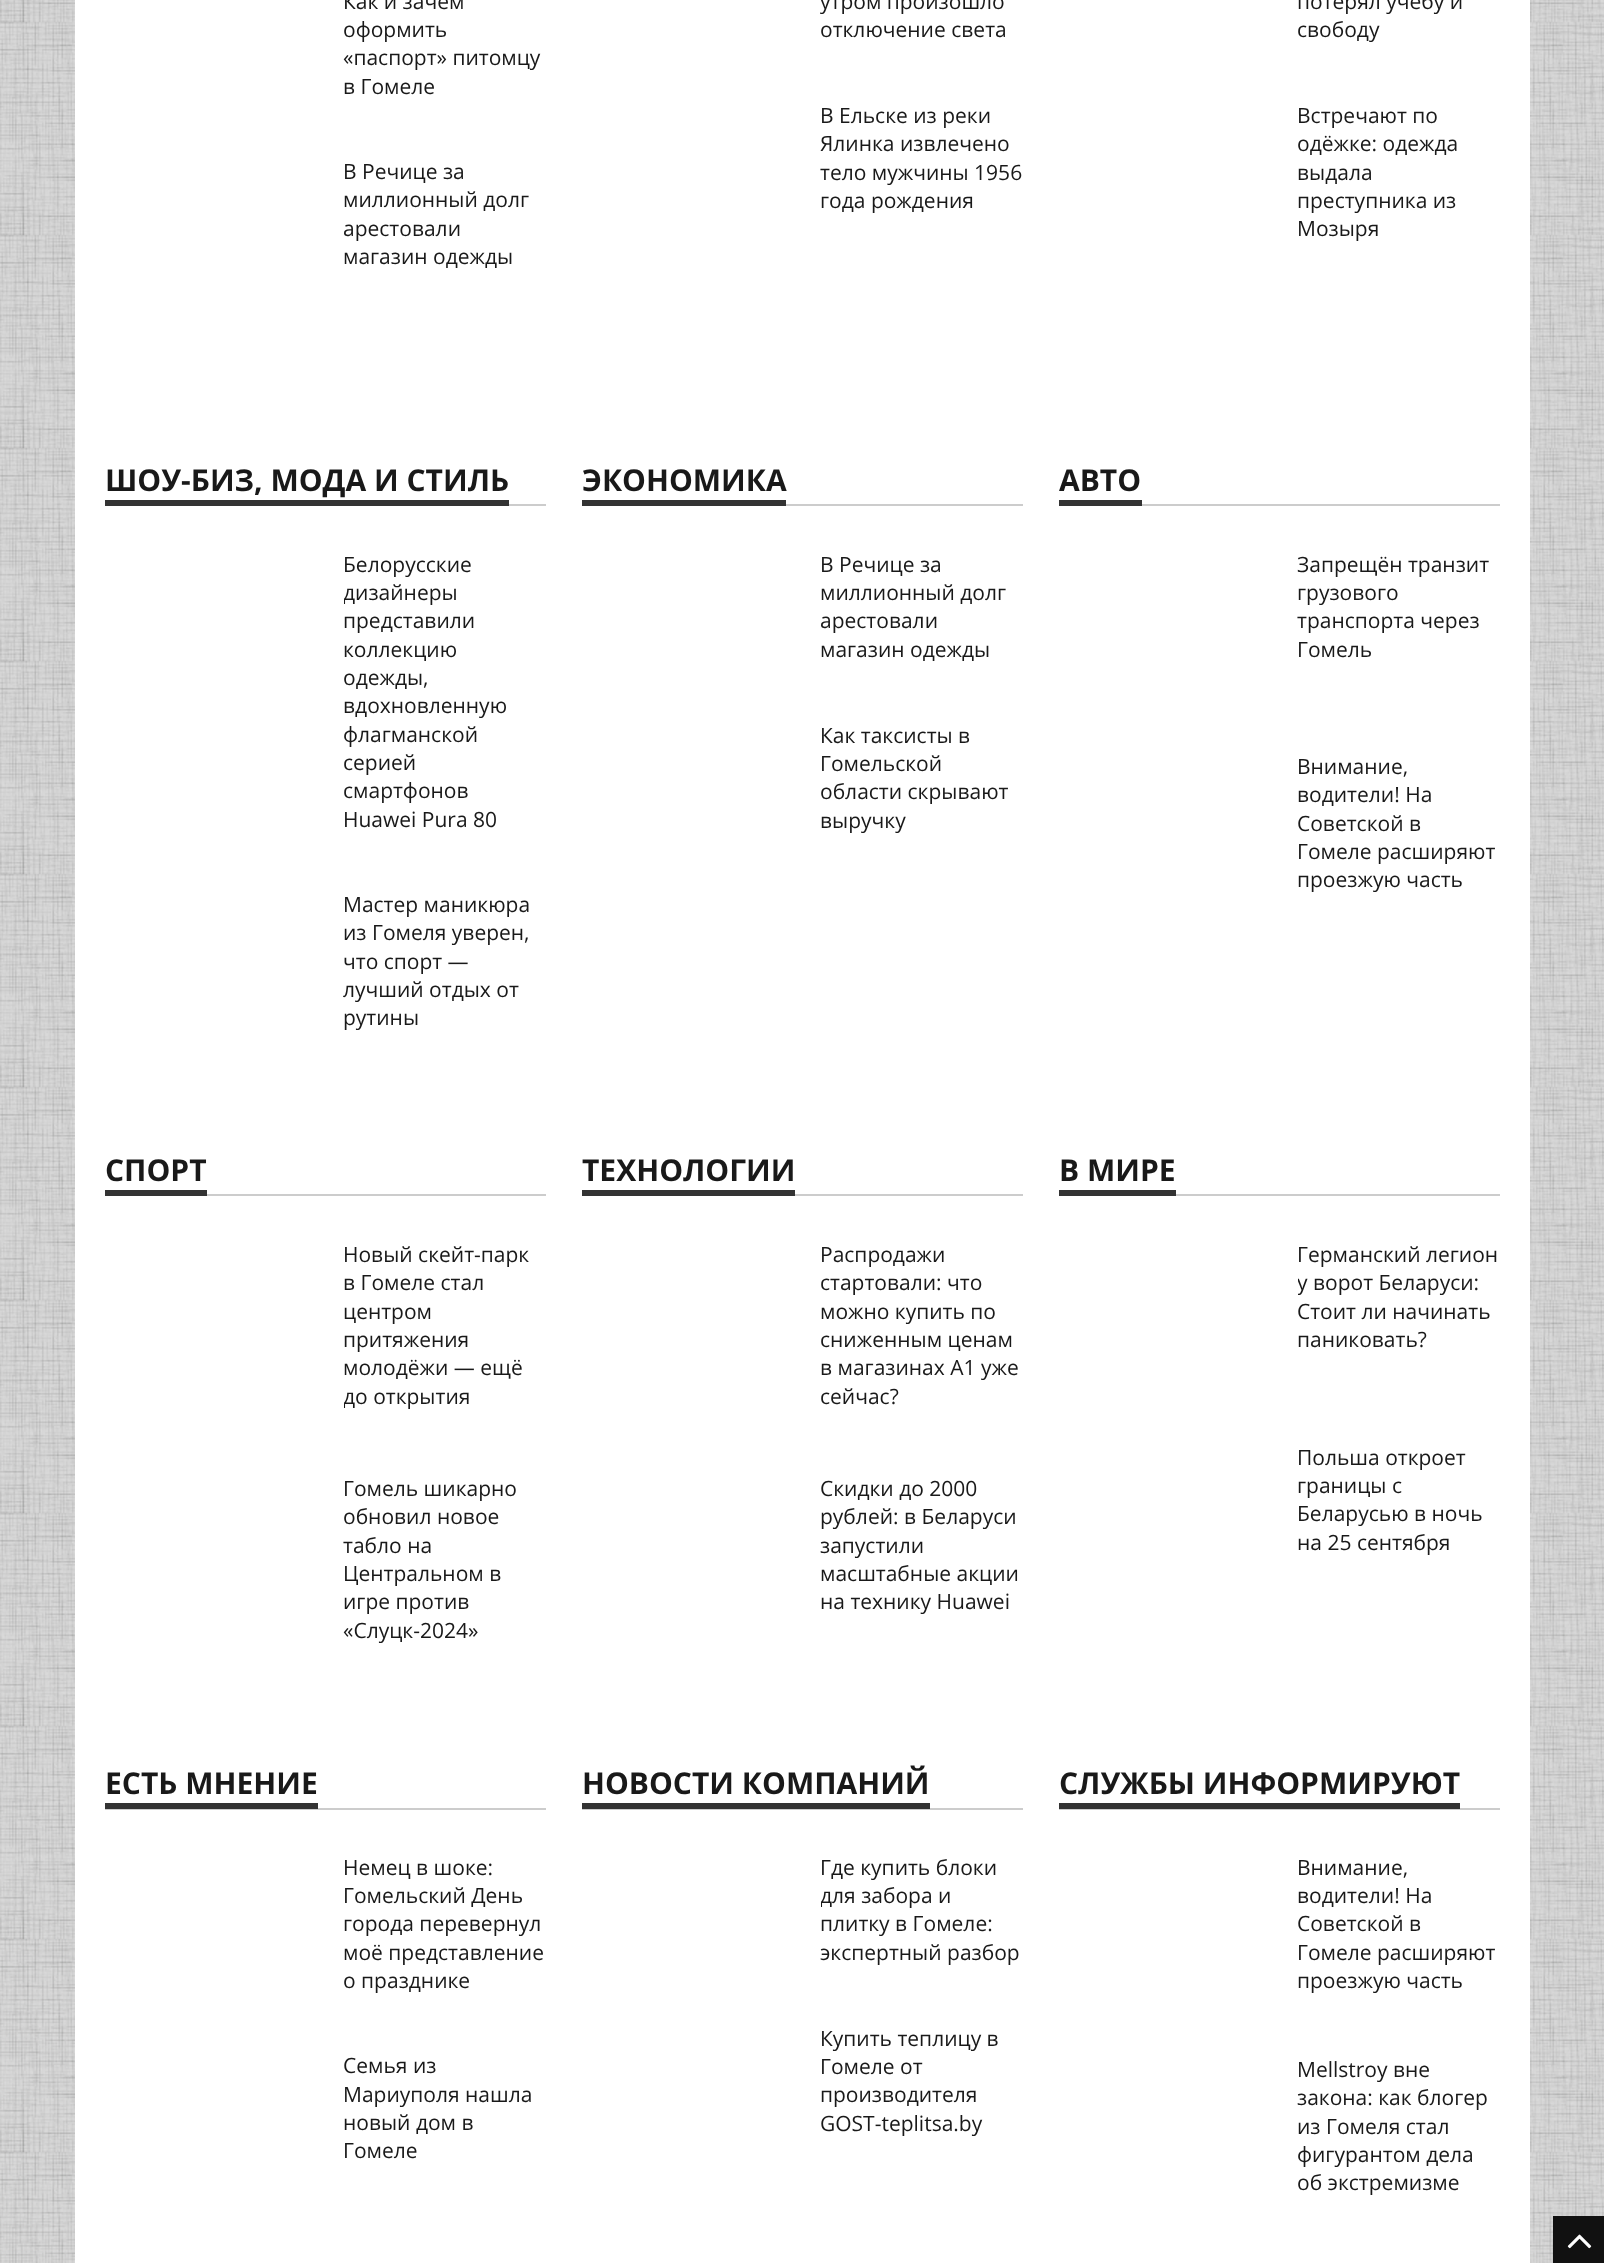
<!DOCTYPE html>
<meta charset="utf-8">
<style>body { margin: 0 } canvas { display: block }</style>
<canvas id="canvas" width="1604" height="2263"></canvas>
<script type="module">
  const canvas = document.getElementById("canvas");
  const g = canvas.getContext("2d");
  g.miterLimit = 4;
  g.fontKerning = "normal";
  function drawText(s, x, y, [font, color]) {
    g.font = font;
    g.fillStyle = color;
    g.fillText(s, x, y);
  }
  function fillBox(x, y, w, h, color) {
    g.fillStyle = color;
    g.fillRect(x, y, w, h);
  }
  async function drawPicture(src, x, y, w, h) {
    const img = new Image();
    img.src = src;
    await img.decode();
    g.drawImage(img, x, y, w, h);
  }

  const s1 = ["21px Open Sans", "#191919"];
  const s2 = ["bold 30px Open Sans", "#191919"];

  fillBox(0, 0, 1604, 2263, "#FFFFFF");
  await drawPicture("pic1.png", 0, 0, 1604, 2263);
  fillBox(75, 0, 1455, 2263, "#FFFFFF");
  drawText("Как и зачем", 343, 9, s1);
  drawText("оформить", 343, 37, s1);
  drawText("«паспорт» питомцу", 343, 65, s1);
  drawText("в Гомеле", 343, 94, s1);
  drawText("В Речице за", 343, 179, s1);
  drawText("миллионный долг", 343, 207, s1);
  drawText("арестовали", 343, 236, s1);
  drawText("магазин одежды", 343, 264, s1);
  drawText("утром произошло", 820, 9, s1);
  drawText("отключение света", 820, 37, s1);
  drawText("В Ельске из реки", 820, 123, s1);
  drawText("Ялинка извлечено", 820, 151, s1);
  drawText("тело мужчины 1956", 820, 180, s1);
  drawText("года рождения", 820, 208, s1);
  drawText("потерял учебу и", 1297, 9, s1);
  drawText("свободу", 1297, 37, s1);
  drawText("Встречают по", 1297, 123, s1);
  drawText("одёжке: одежда", 1297, 151, s1);
  drawText("выдала", 1297, 180, s1);
  drawText("преступника из", 1297, 208, s1);
  drawText("Мозыря", 1297, 236, s1);
  fillBox(509, 504, 37, 2, "#CCCCCC");
  fillBox(105, 500, 404, 6, "#333333");
  drawText("ШОУ-БИЗ, МОДА И СТИЛЬ", 105, 491, s2);
  drawText("Белорусские", 343, 572, s1);
  g.save();
  g.beginPath();
  g.rect(344, 551, 202, 295);
  g.clip();
  drawText("дизайнеры", 343, 600, s1);
  g.restore();
  drawText("представили", 343, 628, s1);
  drawText("коллекцию", 343, 657, s1);
  drawText("одежды,", 343, 685, s1);
  drawText("вдохновленную", 343, 713, s1);
  drawText("флагманской", 343, 742, s1);
  drawText("серией", 343, 770, s1);
  drawText("смартфонов", 343, 798, s1);
  drawText("Huawei Pura 80", 343, 827, s1);
  drawText("Мастер маникюра", 343, 912, s1);
  drawText("из Гомеля уверен,", 343, 940, s1);
  drawText("что спорт —", 343, 969, s1);
  drawText("лучший отдых от", 343, 997, s1);
  drawText("рутины", 343, 1025, s1);
  fillBox(786, 504, 237, 2, "#CCCCCC");
  fillBox(582, 500, 204, 6, "#333333");
  drawText("ЭКОНОМИКА", 582, 491, s2);
  drawText("В Речице за", 820, 572, s1);
  drawText("миллионный долг", 820, 600, s1);
  drawText("арестовали", 820, 628, s1);
  drawText("магазин одежды", 820, 657, s1);
  drawText("Как таксисты в", 820, 743, s1);
  drawText("Гомельской", 820, 771, s1);
  drawText("области скрывают", 820, 799, s1);
  drawText("выручку", 820, 828, s1);
  fillBox(1142, 504, 358, 2, "#CCCCCC");
  fillBox(1059, 500, 83, 6, "#333333");
  drawText("АВТО", 1059, 491, s2);
  drawText("Запрещён транзит", 1297, 572, s1);
  drawText("грузового", 1297, 600, s1);
  drawText("транспорта через", 1297, 628, s1);
  drawText("Гомель", 1297, 657, s1);
  drawText("Внимание,", 1297, 774, s1);
  drawText("водители! На", 1297, 802, s1);
  drawText("Советской в", 1297, 831, s1);
  drawText("Гомеле расширяют", 1297, 859, s1);
  drawText("проезжую часть", 1297, 887, s1);
  fillBox(207, 1194, 339, 2, "#CCCCCC");
  fillBox(105, 1190, 102, 6, "#333333");
  drawText("СПОРТ", 105, 1181, s2);
  drawText("Новый скейт-парк", 343, 1262, s1);
  drawText("в Гомеле стал", 343, 1290, s1);
  drawText("центром", 343, 1319, s1);
  drawText("притяжения", 343, 1347, s1);
  drawText("молодёжи — ещё", 343, 1375, s1);
  g.save();
  g.beginPath();
  g.rect(344, 1241, 202, 183);
  g.clip();
  drawText("до открытия", 343, 1404, s1);
  g.restore();
  drawText("Гомель шикарно", 343, 1496, s1);
  drawText("обновил новое", 343, 1524, s1);
  drawText("табло на", 343, 1553, s1);
  drawText("Центральном в", 343, 1581, s1);
  drawText("игре против", 343, 1609, s1);
  drawText("«Слуцк-2024»", 343, 1638, s1);
  fillBox(795, 1194, 228, 2, "#CCCCCC");
  fillBox(582, 1190, 213, 6, "#333333");
  drawText("ТЕХНОЛОГИИ", 582, 1181, s2);
  drawText("Распродажи", 820, 1262, s1);
  drawText("стартовали: что", 820, 1290, s1);
  drawText("можно купить по", 820, 1319, s1);
  drawText("сниженным ценам", 820, 1347, s1);
  drawText("в магазинах А1 уже", 820, 1375, s1);
  drawText("сейчас?", 820, 1404, s1);
  drawText("Скидки до 2000", 820, 1496, s1);
  drawText("рублей: в Беларуси", 820, 1524, s1);
  drawText("запустили", 820, 1553, s1);
  drawText("масштабные акции", 820, 1581, s1);
  drawText("на технику Huawei", 820, 1609, s1);
  fillBox(1176, 1194, 324, 2, "#CCCCCC");
  fillBox(1059, 1190, 117, 6, "#333333");
  drawText("В МИРЕ", 1059, 1181, s2);
  drawText("Германский легион", 1297, 1262, s1);
  g.save();
  g.beginPath();
  g.rect(1298, 1241, 202, 126);
  g.clip();
  drawText("у ворот Беларуси:", 1297, 1290, s1);
  g.restore();
  drawText("Стоит ли начинать", 1297, 1319, s1);
  drawText("паниковать?", 1297, 1347, s1);
  drawText("Польша откроет", 1297, 1465, s1);
  drawText("границы с", 1297, 1493, s1);
  drawText("Беларусью в ночь", 1297, 1521, s1);
  drawText("на 25 сентября", 1297, 1550, s1);
  fillBox(105, 1808, 441, 2, "#CCCCCC");
  fillBox(105, 1803, 213, 6, "#333333");
  drawText("ЕСТЬ МНЕНИЕ", 105, 1794, s2);
  drawText("Немец в шоке:", 343, 1875, s1);
  drawText("Гомельский День", 343, 1903, s1);
  drawText("города перевернул", 343, 1931, s1);
  drawText("моё представление", 343, 1960, s1);
  drawText("о празднике", 343, 1988, s1);
  drawText("Семья из", 343, 2073, s1);
  drawText("Мариуполя нашла", 343, 2102, s1);
  drawText("новый дом в", 343, 2130, s1);
  drawText("Гомеле", 343, 2158, s1);
  fillBox(582, 1808, 441, 2, "#CCCCCC");
  fillBox(582, 1803, 348, 6, "#333333");
  drawText("НОВОСТИ КОМПАНИЙ", 582, 1794, s2);
  drawText("Где купить блоки", 820, 1875, s1);
  g.save();
  g.beginPath();
  g.rect(821, 1854, 202, 125);
  g.clip();
  drawText("для забора и", 820, 1903, s1);
  g.restore();
  drawText("плитку в Гомеле:", 820, 1931, s1);
  drawText("экспертный разбор", 820, 1960, s1);
  drawText("Купить теплицу в", 820, 2046, s1);
  drawText("Гомеле от", 820, 2074, s1);
  drawText("производителя", 820, 2102, s1);
  drawText("GOST-teplitsa.by", 820, 2131, s1);
  fillBox(1059, 1808, 441, 2, "#CCCCCC");
  fillBox(1059, 1803, 401, 6, "#333333");
  drawText("СЛУЖБЫ ИНФОРМИРУЮТ", 1059, 1794, s2);
  drawText("Внимание,", 1297, 1875, s1);
  drawText("водители! На", 1297, 1903, s1);
  drawText("Советской в", 1297, 1931, s1);
  drawText("Гомеле расширяют", 1297, 1960, s1);
  drawText("проезжую часть", 1297, 1988, s1);
  drawText("Mellstroy вне", 1297, 2077, s1);
  drawText("закона: как блогер", 1297, 2105, s1);
  drawText("из Гомеля стал", 1297, 2134, s1);
  drawText("фигурантом дела", 1297, 2162, s1);
  drawText("об экстремизме", 1297, 2190, s1);
  fillBox(1553, 2216, 51, 47, "#111111");
  await drawPicture("pic2.png", 1567, 2234, 25, 15);
</script>
